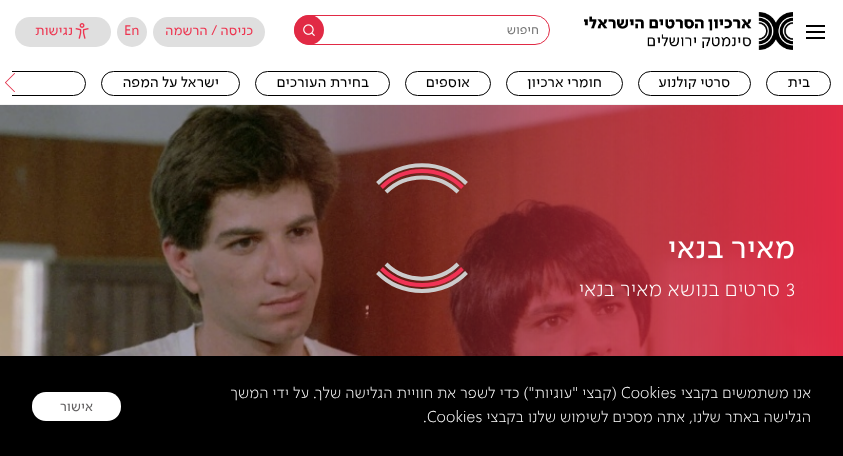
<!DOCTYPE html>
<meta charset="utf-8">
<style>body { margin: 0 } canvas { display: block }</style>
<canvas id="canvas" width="843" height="456"></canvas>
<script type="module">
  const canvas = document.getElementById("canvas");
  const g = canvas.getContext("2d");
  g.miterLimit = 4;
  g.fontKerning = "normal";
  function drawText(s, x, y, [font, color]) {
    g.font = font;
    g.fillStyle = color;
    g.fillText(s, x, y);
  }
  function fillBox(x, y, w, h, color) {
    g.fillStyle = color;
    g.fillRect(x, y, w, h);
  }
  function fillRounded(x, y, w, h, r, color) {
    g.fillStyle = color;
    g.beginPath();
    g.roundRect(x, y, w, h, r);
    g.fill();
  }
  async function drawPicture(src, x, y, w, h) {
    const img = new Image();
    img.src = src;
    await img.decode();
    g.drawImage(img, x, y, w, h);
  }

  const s1 = ["13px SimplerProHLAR", "#757575"];
  const s2 = ["14px SimplerProHLAR", "#ED3550"];
  const s3 = ["15px SimplerProHLAR", "#000000"];
  const s4 = ["32px SimplerProHLAR", "#FFFFFF"];
  const s5 = ["300 22px SimplerProHLAR", "#FFFFFF"];
  const s6 = ["300 16px SimplerProHLAR", "#FFFFFF"];
  const s7 = ["14px SimplerProHLAR", "#626061"];

  fillBox(0, 0, 843, 456, "#FFFFFF");
  fillBox(0, 104, 843, 1, "#F3F3F3");
  fillBox(806, 25, 19, 2, "#000000");
  fillBox(806, 31, 19, 2, "#000000");
  fillBox(806, 37, 19, 2, "#000000");
  await drawPicture("pic1.png", 584, 12, 209, 38);
  g.beginPath();
  g.roundRect(294.5, 15.5, 255, 29, 14.5);
  g.strokeStyle = "#E12A45";
  g.stroke();
  g.direction = "rtl";
  drawText("חיפוש", 539, 34, s1);
  g.fillStyle = "#E12A45";
  g.beginPath();
  g.arc(309, 30, 15, 0, Math.PI * 2);
  g.fill();
  await drawPicture("pic2.png", 303, 24, 12, 12);
  fillRounded(153, 17, 112, 30, 15, "#DFDFDF");
  drawText("כניסה / הרשמה", 253, 35, s2);
  g.fillStyle = "#DFDFDF";
  g.beginPath();
  g.arc(132, 32, 15, 0, Math.PI * 2);
  g.fill();
  g.direction = "ltr";
  drawText("En", 124, 35, s2);
  fillRounded(15, 17, 96, 30, 15, "#DFDFDF");
  await drawPicture("pic3.png", 75, 23, 14, 16);
  g.direction = "rtl";
  drawText("נגישות", 73, 35, s2);
  g.beginPath();
  g.roundRect(766.5, 71.5, 64, 24, 12);
  g.strokeStyle = "#000000";
  g.stroke();
  drawText("בית", 810, 87, s3);
  g.beginPath();
  g.roundRect(638.5, 71.5, 112, 24, 12);
  g.stroke();
  drawText("סרטי קולנוע", 730, 87, s3);
  g.beginPath();
  g.roundRect(506.5, 71.5, 116, 24, 12);
  g.stroke();
  drawText("חומרי ארכיון", 602, 87, s3);
  g.beginPath();
  g.roundRect(405.5, 71.5, 85, 24, 12);
  g.stroke();
  drawText("אוספים", 470, 87, s3);
  g.beginPath();
  g.roundRect(255.5, 71.5, 134, 24, 12);
  g.stroke();
  drawText("בחירת העורכים", 369, 87, s3);
  g.beginPath();
  g.roundRect(101.5, 71.5, 138, 24, 12);
  g.stroke();
  drawText("ישראל על המפה", 219, 87, s3);
  await drawPicture("pic4.png", 5, 73, 10, 19);
  g.save();
  g.beginPath();
  g.rect(12, 71, 819, 25);
  g.clip();
  g.beginPath();
  g.roundRect(-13.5, 71.5, 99, 24, 12);
  g.stroke();
  g.restore();
  await drawPicture("pic5.png", 0, 105, 843, 251);
  drawText("מאיר בנאי", 795, 258, s4);
  g.direction = "ltr";
  drawText("3", 786, 296, s5);
  g.direction = "rtl";
  drawText("סרטים בנושא מאיר בנאי", 780, 296, s5);
  g.beginPath();
  g.moveTo(377.5, 183.5);
  g.bezierCurveTo(401.5, 159, 442.5, 159, 466.5, 183.5);
  g.strokeStyle = "#CCCCCC";
  g.lineWidth = 4;
  g.stroke();
  g.beginPath();
  g.moveTo(466.5, 272.5);
  g.bezierCurveTo(442.5, 297, 401.5, 297, 377.5, 272.5);
  g.stroke();
  g.beginPath();
  g.moveTo(381.5, 187.5);
  g.bezierCurveTo(403.5, 165.5, 440.5, 165.5, 462.5, 187.5);
  g.strokeStyle = "#F03355";
  g.stroke();
  g.beginPath();
  g.moveTo(462.5, 268.5);
  g.bezierCurveTo(440.5, 290.5, 403.5, 290.5, 381.5, 268.5);
  g.stroke();
  g.beginPath();
  g.moveTo(386, 192);
  g.bezierCurveTo(405.5, 172.5, 438.5, 172.5, 458, 192);
  g.strokeStyle = "#CCCCCC";
  g.stroke();
  g.beginPath();
  g.moveTo(458, 264);
  g.bezierCurveTo(438.5, 283.5, 405.5, 283.5, 386, 264);
  g.stroke();
  fillBox(0, 356, 843, 100, "#000000");
  drawText("אנו משתמשים בקבצי", 811, 398, s6);
  g.direction = "ltr";
  drawText("Cookies", 621, 398, s6);
  g.direction = "rtl";
  drawText("(קבצי \"עוגיות\") כדי לשפר את חוויית הגלישה שלך. על ידי המשך", 617, 398, s6);
  drawText("הגלישה באתר שלנו, אתה מסכים לשימוש שלנו בקבצי", 811, 422, s6);
  g.direction = "ltr";
  drawText(".Cookies", 423, 422, s6);
  fillRounded(32, 392, 89, 29, 14, "#FFFFFF");
  g.direction = "rtl";
  drawText("אישור", 93, 411, s7);
</script>
